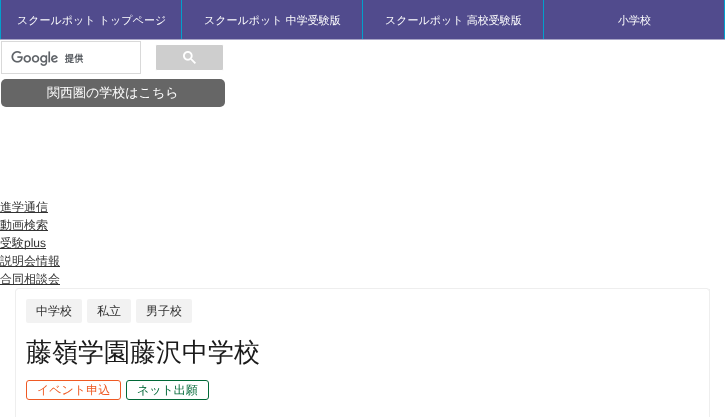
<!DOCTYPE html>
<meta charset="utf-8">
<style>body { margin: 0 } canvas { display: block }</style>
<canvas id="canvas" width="725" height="417"></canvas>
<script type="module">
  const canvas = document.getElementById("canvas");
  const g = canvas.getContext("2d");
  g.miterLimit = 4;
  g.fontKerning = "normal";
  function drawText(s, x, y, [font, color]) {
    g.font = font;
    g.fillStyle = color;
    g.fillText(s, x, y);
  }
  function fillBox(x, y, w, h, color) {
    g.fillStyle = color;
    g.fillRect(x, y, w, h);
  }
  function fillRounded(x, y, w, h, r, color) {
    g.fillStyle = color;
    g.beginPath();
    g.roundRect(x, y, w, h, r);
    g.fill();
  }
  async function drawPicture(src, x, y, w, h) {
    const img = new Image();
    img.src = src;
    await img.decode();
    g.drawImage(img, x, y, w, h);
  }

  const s1 = ["500 11px WenQuanYi Zen Hei", "#FFFFFF"];
  const s2 = ["500 13px WenQuanYi Zen Hei", "#FFFFFF"];
  const s3 = ["500 12px WenQuanYi Zen Hei", "#333333"];
  const s4 = ["12px Liberation Sans", "#333333"];
  const s5 = ["500 26px WenQuanYi Zen Hei", "#1A1A1A"];
  const s6 = ["500 12px WenQuanYi Zen Hei", "#EF5A24"];
  const s7 = ["500 12px WenQuanYi Zen Hei", "#006837"];

  fillBox(0, 0, 725, 417, "#FFFFFF");
  fillBox(1, 0, 723, 39, "#514B8D");
  fillBox(0, 39, 725, 1, "#A8A5C6");
  fillBox(0, 0, 1, 39, "#02A0CC");
  fillBox(181, 0, 1, 39, "#02A0CC");
  drawText("スクールポット トップページ", 17, 24, s1);
  fillBox(362, 0, 1, 39, "#02A0CC");
  drawText("スクールポット 中学受験版", 204, 24, s1);
  fillBox(543, 0, 1, 39, "#02A0CC");
  drawText("スクールポット 高校受験版", 385, 24, s1);
  fillBox(724, 0, 1, 39, "#02A0CC");
  drawText("小学校", 618, 24, s1);
  g.strokeStyle = "#D9D9D9";
  g.strokeRect(1.5, 41.5, 139, 32);
  await drawPicture("pic1.png", 11, 51, 73, 15);
  g.fillStyle = "#CECECE";
  g.beginPath();
  g.roundRect(155.5, 44.5, 68, 26, 1.5);
  g.fill();
  g.strokeStyle = "#FFFFFF";
  g.stroke();
  await drawPicture("pic2.png", 183, 51, 13, 13);
  fillRounded(1, 79, 224, 28, 5, "#666666");
  drawText("関西圏の学校はこちら", 47, 97, s2);
  fillBox(0, 212, 48, 1, "#333333");
  drawText("進学通信", 0, 211, s3);
  fillBox(0, 230, 48, 1, "#333333");
  drawText("動画検索", 0, 229, s3);
  fillBox(0, 248, 46, 1, "#333333");
  drawText("受験", 0, 247, s3);
  drawText("plus", 24, 247, s4);
  fillBox(0, 266, 60, 1, "#333333");
  drawText("説明会情報", 0, 265, s3);
  fillBox(0, 284, 60, 1, "#333333");
  drawText("合同相談会", 0, 283, s3);
  g.fillStyle = "#EEEEEE";
  g.beginPath();
  g.moveTo(18, 288);
  g.lineTo(16, 289);
  g.lineTo(17, 290);
  g.lineTo(18, 289);
  g.lineTo(707, 289);
  g.lineTo(708, 290);
  g.lineTo(709, 289);
  g.lineTo(707, 288);
  g.closePath();
  g.fill();
  g.beginPath();
  g.moveTo(710, 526);
  g.lineTo(710, 289);
  g.lineTo(709, 289);
  g.lineTo(708, 290);
  g.lineTo(709, 291);
  g.lineTo(709, 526);
  g.lineTo(710, 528);
  g.closePath();
  g.fill();
  g.beginPath();
  g.moveTo(15, 291);
  g.lineTo(15, 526);
  g.lineTo(15, 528);
  g.lineTo(16, 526);
  g.lineTo(16, 291);
  g.lineTo(17, 290);
  g.lineTo(16, 289);
  g.closePath();
  g.fill();
  fillRounded(26, 299, 56, 24, 2, "#F2F2F2");
  drawText("中学校", 36, 315, s3);
  fillRounded(87, 299, 44, 24, 2, "#F2F2F2");
  drawText("私立", 97, 315, s3);
  fillRounded(136, 299, 56, 24, 2, "#F2F2F2");
  drawText("男子校", 146, 315, s3);
  drawText("藤嶺学園藤沢中学校", 26, 361, s5);
  g.beginPath();
  g.roundRect(26.5, 380.5, 94, 19, 2.5);
  g.strokeStyle = "#EF5A24";
  g.stroke();
  drawText("イベント申込", 37, 394, s6);
  g.beginPath();
  g.roundRect(126.5, 380.5, 82, 19, 2.5);
  g.strokeStyle = "#006837";
  g.stroke();
  drawText("ネット出願", 137, 394, s7);
</script>
